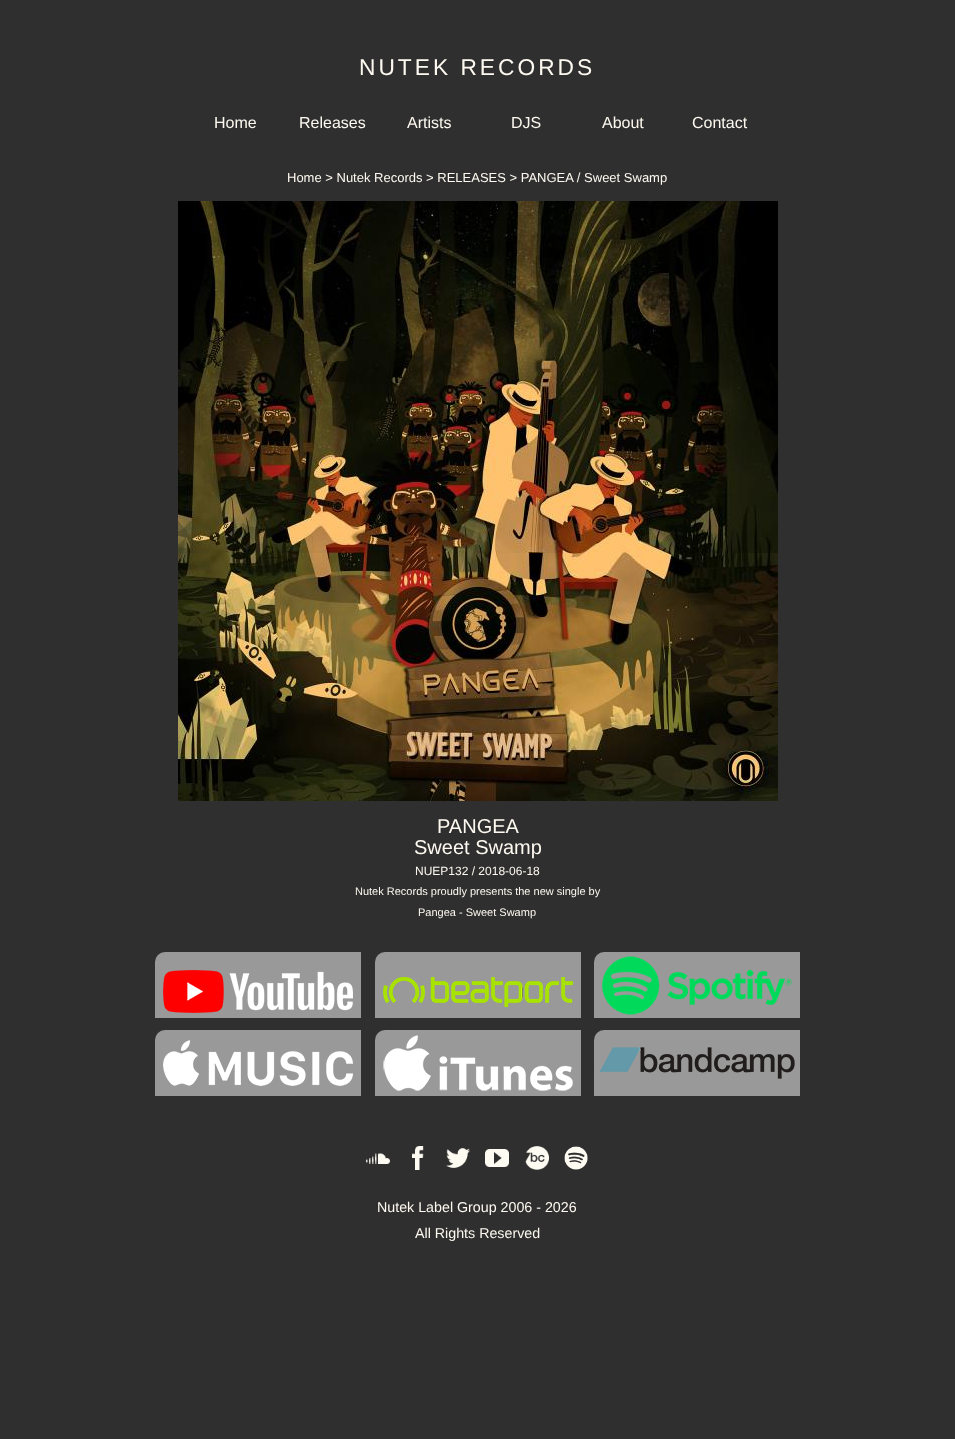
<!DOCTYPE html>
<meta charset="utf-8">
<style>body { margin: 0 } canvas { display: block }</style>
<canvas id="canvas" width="955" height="1439"></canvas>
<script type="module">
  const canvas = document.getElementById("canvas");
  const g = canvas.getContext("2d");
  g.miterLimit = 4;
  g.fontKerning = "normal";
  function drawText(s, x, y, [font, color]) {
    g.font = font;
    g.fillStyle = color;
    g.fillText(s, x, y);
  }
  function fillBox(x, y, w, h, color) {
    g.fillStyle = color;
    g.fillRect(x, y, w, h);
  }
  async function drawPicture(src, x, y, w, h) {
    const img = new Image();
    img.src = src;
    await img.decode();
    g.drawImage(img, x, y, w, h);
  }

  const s1 = ["22.75px Liberation Sans", "#FDF9F0"];
  const s2 = ["16px Liberation Sans", "#FDF9F0"];
  const s3 = ["13px Liberation Sans", "#FDF9F0"];
  const s4 = ["20px Liberation Sans", "#FDF9F0"];
  const s5 = ["12px Liberation Sans", "#FDF9F0"];
  const s6 = ["11px Liberation Sans", "#FDF9F0"];
  const s7 = ["14.25px Liberation Sans", "#FDF9F0"];

  fillBox(0, 0, 955, 1439, "#2F2F2F");
  g.letterSpacing = "3px";
  drawText("NUTEK RECORDS", 359, 75, s1);
  g.letterSpacing = "0px";
  drawText("Home", 214, 128, s2);
  drawText("Releases", 299, 128, s2);
  drawText("Artists", 407, 128, s2);
  drawText("DJS", 511, 128, s2);
  drawText("About", 602, 128, s2);
  drawText("Contact", 692, 128, s2);
  drawText("Home > Nutek Records > RELEASES > PANGEA / Sweet Swamp", 287, 182, s3);
  await drawPicture("pic1.png", 178, 201, 600, 600);
  drawText("PANGEA", 437, 833, s4);
  drawText("Sweet Swamp", 414, 854, s4);
  drawText("NUEP132 / 2018-06-18", 415, 875, s5);
  drawText("Nutek Records proudly presents the new single by", 355, 895, s6);
  drawText("Pangea - Sweet Swamp", 418, 916, s6);
  g.fillStyle = "#999999";
  g.beginPath();
  g.roundRect(155, 952, 206, 66, [10, 0, 0, 0]);
  g.fill();
  g.beginPath();
  g.roundRect(375, 952, 206, 66, [10, 0, 0, 0]);
  g.fill();
  g.beginPath();
  g.roundRect(594, 952, 206, 66, [10, 0, 0, 0]);
  g.fill();
  await drawPicture("pic2.png", 163, 970, 190, 43);
  await drawPicture("pic3.png", 383, 977, 190, 30);
  await drawPicture("pic4.png", 602, 956, 190, 59);
  g.beginPath();
  g.roundRect(155, 1030, 206, 66, [10, 0, 0, 0]);
  g.fill();
  g.beginPath();
  g.roundRect(375, 1030, 206, 66, [10, 0, 0, 0]);
  g.fill();
  g.beginPath();
  g.roundRect(594, 1030, 206, 66, [10, 0, 0, 0]);
  g.fill();
  await drawPicture("pic5.png", 163, 1040, 190, 46);
  await drawPicture("pic6.png", 383, 1035, 190, 56);
  await drawPicture("pic7.png", 599, 1047, 196, 32);
  await drawPicture("pic8.png", 366, 1153, 24, 11);
  await drawPicture("pic9.png", 412, 1146, 12, 24);
  await drawPicture("pic10.png", 446, 1148, 24, 20);
  await drawPicture("pic11.png", 485, 1149, 24, 18);
  await drawPicture("pic12.png", 525, 1146, 24, 24);
  await drawPicture("pic13.png", 564, 1146, 24, 24);
  drawText("Nutek Label Group 2006 - 2026", 377, 1212, s7);
  drawText("All Rights Reserved", 415, 1238, s7);
</script>
